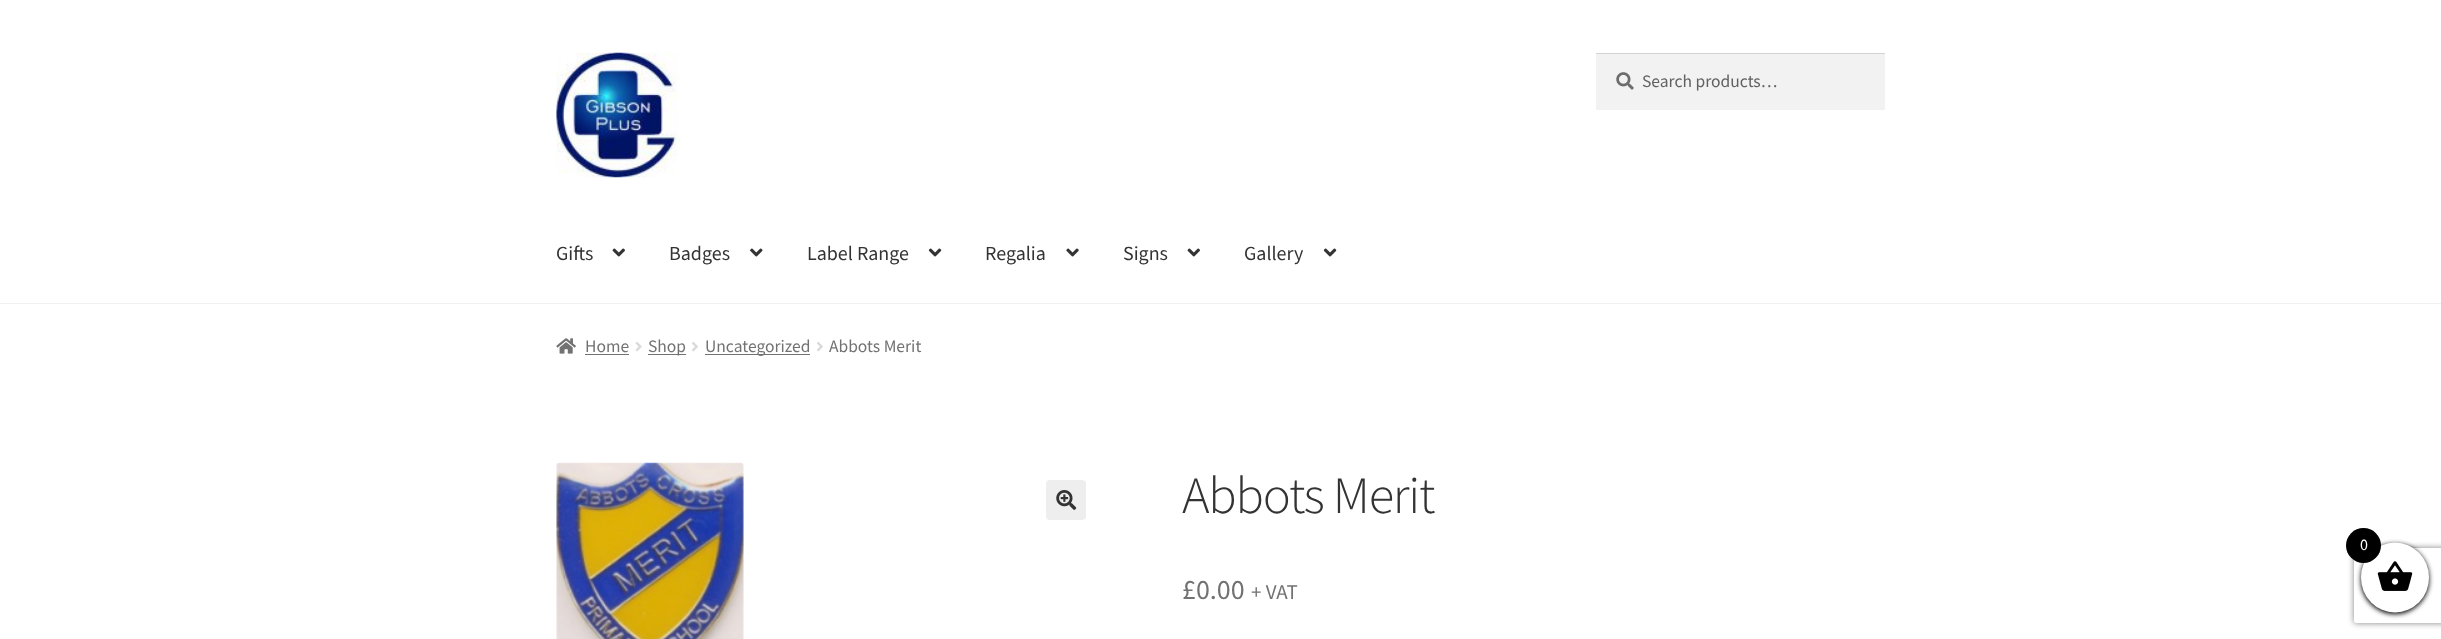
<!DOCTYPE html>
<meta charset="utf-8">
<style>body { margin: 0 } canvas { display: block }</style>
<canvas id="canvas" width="2441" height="639"></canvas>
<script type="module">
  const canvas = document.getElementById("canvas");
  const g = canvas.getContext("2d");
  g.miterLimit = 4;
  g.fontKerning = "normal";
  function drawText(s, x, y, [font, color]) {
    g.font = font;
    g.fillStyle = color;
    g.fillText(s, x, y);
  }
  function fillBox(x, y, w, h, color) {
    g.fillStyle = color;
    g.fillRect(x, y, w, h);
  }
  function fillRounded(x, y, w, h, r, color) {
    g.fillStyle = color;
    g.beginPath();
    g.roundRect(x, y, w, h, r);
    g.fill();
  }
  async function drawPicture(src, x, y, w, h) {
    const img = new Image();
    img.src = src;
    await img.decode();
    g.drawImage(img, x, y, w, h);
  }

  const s1 = ["17.5px Source Sans Pro", "#616161"];
  const s2 = ["20px Source Sans Pro", "#333333"];
  const s3 = ["17.5px Source Sans Pro", "#727272"];
  const s4 = ["300 52.5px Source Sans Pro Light", "#333333"];
  const s5 = ["28px Source Sans Pro", "#727272"];
  const s6 = ["21px Source Sans Pro", "#727272"];
  const s7 = ["16px Source Sans Pro", "#FFFFFF"];

  fillBox(0, 0, 2441, 639, "#FFFFFF");
  fillBox(0, 303, 2441, 1, "#F0F0F0");
  await drawPicture("pic1.png", 556, 52, 125, 126);
  fillBox(1596, 54, 289, 56, "#F2F2F2");
  await drawPicture("pic2.png", 1616, 72, 18, 18);
  fillBox(1596, 53, 289, 1, "#D4D4D4");
  drawText("Search products…", 1642, 87, s1);
  drawText("Gifts", 556, 260, s2);
  await drawPicture("pic3.png", 612, 248, 13, 9);
  drawText("Badges", 669, 260, s2);
  await drawPicture("pic4.png", 750, 248, 13, 9);
  drawText("Label Range", 807, 260, s2);
  await drawPicture("pic5.png", 928, 248, 14, 9);
  drawText("Regalia", 985, 260, s2);
  await drawPicture("pic6.png", 1066, 248, 13, 9);
  drawText("Signs", 1123, 260, s2);
  await drawPicture("pic3.png", 1187, 248, 13, 9);
  drawText("Gallery", 1244, 260, s2);
  await drawPicture("pic5.png", 1323, 248, 14, 9);
  await drawPicture("pic7.png", 556, 338, 20, 16);
  drawText("Home", 585, 352, s3);
  fillBox(585, 354, 44, 1, "#727272");
  await drawPicture("pic8.png", 635, 342, 7, 10);
  fillBox(648, 354, 38, 1, "#727272");
  drawText("Shop", 648, 352, s3);
  await drawPicture("pic9.png", 692, 342, 6, 10);
  fillBox(705, 354, 105, 1, "#727272");
  drawText("Uncategorized", 705, 352, s3);
  await drawPicture("pic9.png", 817, 342, 6, 10);
  drawText("Abbots Merit", 829, 352, s3);
  await drawPicture("pic10.png", 556, 462, 188, 177);
  fillRounded(1046, 480, 40, 40, 4, "#EEEEEE");
  await drawPicture("pic11.png", 1056, 490, 21, 20);
  g.letterSpacing = "-1.25px";
  drawText("Abbots Merit", 1182, 513, s4);
  g.letterSpacing = "0px";
  drawText("£0.00", 1182, 599, s5);
  drawText("+ VAT", 1251, 599, s6);
  g.save();
  g.beginPath();
  g.moveTo(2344, 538);
  g.lineTo(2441, 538);
  g.lineTo(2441, 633);
  g.lineTo(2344, 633);
  g.closePath();
  g.moveTo(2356.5, 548);
  g.lineTo(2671.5, 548);
  g.bezierCurveTo(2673, 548, 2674, 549, 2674, 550.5);
  g.lineTo(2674, 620.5);
  g.bezierCurveTo(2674, 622, 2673, 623, 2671.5, 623);
  g.lineTo(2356.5, 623);
  g.bezierCurveTo(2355, 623, 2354, 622, 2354, 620.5);
  g.lineTo(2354, 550.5);
  g.bezierCurveTo(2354, 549, 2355, 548, 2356.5, 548);
  g.closePath();
  g.clip("evenodd");
  g.fillStyle = "#808080";
  g.filter = "blur(3px)";
  g.beginPath();
  g.roundRect(2354, 548, 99, 75, 2.5);
  g.fill();
  g.filter = "none";
  g.restore();
  g.fillStyle = "#000000";
  g.filter = "blur(2.5px)";
  g.beginPath();
  g.roundRect(2361, 544, 68, 70, 34);
  g.fill();
  g.filter = "none";
  g.fillStyle = "#FFFFFF";
  g.beginPath();
  g.ellipse(2395, 577.5, 34, 35, 0, 0, Math.PI * 2);
  g.fill();
  g.fillStyle = "#000000";
  g.beginPath();
  g.arc(2363.5, 545.5, 17.5, 0, Math.PI * 2);
  g.fill();
  drawText("0", 2360, 550, s7);
  await drawPicture("pic12.png", 2377, 561, 36, 30);
</script>
